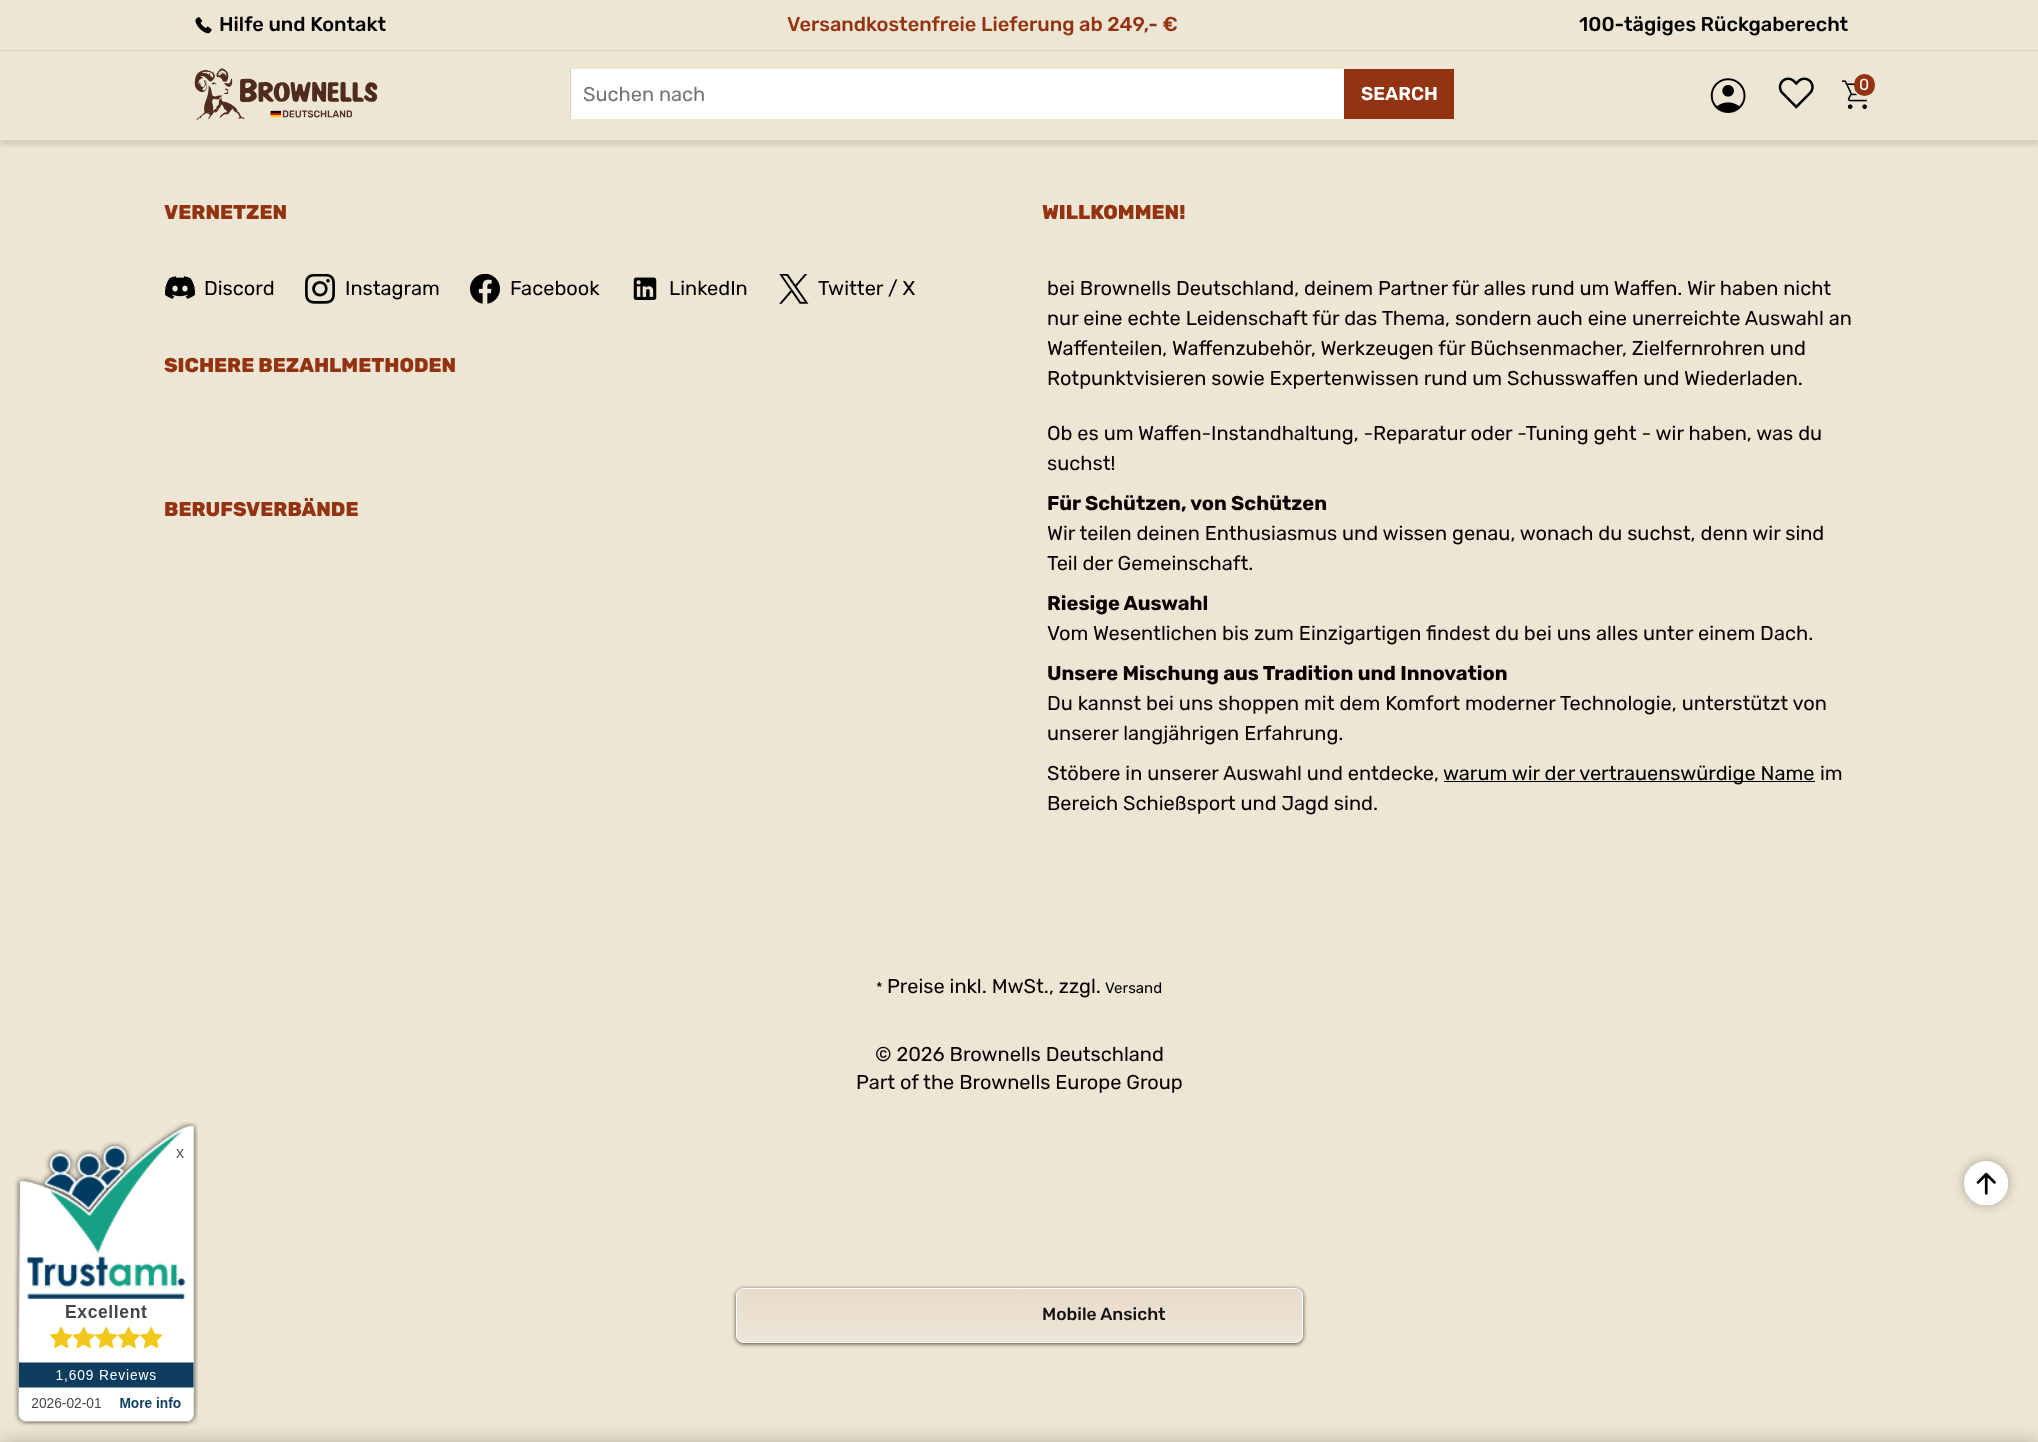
<!DOCTYPE html>
<meta charset="utf-8">
<style>body { margin: 0 } canvas { display: block }</style>
<canvas id="canvas" width="2038" height="1442"></canvas>
<script type="module">
  const canvas = document.getElementById("canvas");
  const g = canvas.getContext("2d");
  g.miterLimit = 4;
  g.fontKerning = "normal";
  function drawText(s, x, y, [font, color]) {
    g.font = font;
    g.fillStyle = color;
    g.fillText(s, x, y);
  }
  function fillBox(x, y, w, h, color) {
    g.fillStyle = color;
    g.fillRect(x, y, w, h);
  }
  function fillRounded(x, y, w, h, r, color) {
    g.fillStyle = color;
    g.beginPath();
    g.roundRect(x, y, w, h, r);
    g.fill();
  }
  async function drawPicture(src, x, y, w, h) {
    const img = new Image();
    img.src = src;
    await img.decode();
    g.drawImage(img, x, y, w, h);
  }
  let gradient;

  const s1 = ["500 20px Rubik", "#000000"];
  const s2 = ["500 20px Rubik", "#933311"];
  const s3 = ["16px Rubik", "#FFFFFF"];
  const s4 = ["20px Rubik", "#757575"];
  const s5 = ["600 18.75px Rubik", "#FFFFFF"];
  const s6 = ["800 20px Rubik", "#933311"];
  const s7 = ["20px Rubik", "#000000"];
  const s8 = ["20px Rubik", "#0A0000"];
  const s9 = ["bold 20px Rubik", "#0A0000"];
  const s10 = ["15px Rubik", "#0A0000"];
  const s11 = ["15px Rubik", "#000000"];
  const s12 = ["500 17.5px Rubik", "#141311"];

  fillBox(0, 0, 2038, 1442, "#EDE6D4");
  g.fillStyle = "rgba(0, 0, 0, 0.25)";
  g.filter = "blur(10px)";
  g.beginPath();
  g.roundRect(0, 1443, 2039, 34, 5);
  g.fill();
  g.filter = "none";
  await drawPicture("pic1.png", 14, 1122, 184, 304);
  g.fillStyle = "rgba(0, 0, 0, 0.1)";
  g.filter = "blur(2.5px)";
  g.beginPath();
  g.rect(0, 55, 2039, 90);
  g.fill();
  g.filter = "none";
  fillBox(0, 50, 2038, 1, "#D3CFCF");
  await drawPicture("pic2.png", 195, 17, 17, 17);
  drawText("Hilfe und Kontakt", 219, 31, s1);
  drawText("Versandkostenfreie Lieferung ab 249,- €", 787, 31, s2);
  drawText("100-tägiges Rückgaberecht", 1579, 31, s1);
  fillBox(0, 52, 2038, 88, "#EDE6D4");
  await drawPicture("pic3.png", 194, 68, 184, 52);
  await drawPicture("pic4.png", 1710, 78, 36, 35);
  await drawPicture("pic5.png", 1778, 77, 36, 32);
  await drawPicture("pic6.png", 1842, 80, 25, 29);
  fillRounded(1854, 74, 21, 22, 10.5, "#933311");
  drawText("0", 1859, 90, s3);
  g.strokeStyle = "#D6D7C9";
  g.strokeRect(570.5, 69.5, 883, 49);
  fillBox(571, 69, 773, 50, "#FFFFFF");
  drawText("Suchen nach", 583, 101, s4);
  fillBox(1344, 69, 110, 50, "#933311");
  drawText("SEARCH", 1361, 100, s5);
  drawText("VERNETZEN", 164, 219, s6);
  await drawPicture("pic7.png", 165, 276, 30, 23);
  drawText("Discord", 204, 295, s7);
  await drawPicture("pic8.png", 305, 274, 30, 30);
  drawText("Instagram", 345, 295, s7);
  await drawPicture("pic9.png", 470, 274, 30, 30);
  drawText("Facebook", 510, 295, s7);
  await drawPicture("pic10.png", 633, 277, 24, 23);
  drawText("LinkedIn", 669, 295, s7);
  await drawPicture("pic11.png", 779, 274, 30, 30);
  drawText("Twitter / X", 818, 295, s7);
  drawText("SICHERE BEZAHLMETHODEN", 164, 372, s6);
  drawText("BERUFSVERBÄNDE", 164, 516, s6);
  drawText("WILLKOMMEN!", 1042, 219, s6);
  drawText("bei Brownells Deutschland, deinem Partner für alles rund um Waffen. Wir haben nicht", 1047, 295, s8);
  drawText("nur eine echte Leidenschaft für das Thema, sondern auch eine unerreichte Auswahl an", 1047, 325, s8);
  drawText("Waffenteilen, Waffenzubehör, Werkzeugen für Büchsenmacher, Zielfernrohren und", 1047, 355, s8);
  drawText("Rotpunktvisieren sowie Expertenwissen rund um Schusswaffen und Wiederladen.", 1047, 385, s8);
  drawText("Ob es um Waffen-Instandhaltung, -Reparatur oder -Tuning geht - wir haben, was du", 1047, 440, s8);
  drawText("suchst!", 1047, 470, s8);
  drawText("Für Schützen, von Schützen", 1047, 510, s9);
  drawText("Wir teilen deinen Enthusiasmus und wissen genau, wonach du suchst, denn wir sind", 1047, 540, s8);
  drawText("Teil der Gemeinschaft.", 1047, 570, s8);
  drawText("Riesige Auswahl", 1047, 610, s9);
  drawText("Vom Wesentlichen bis zum Einzigartigen findest du bei uns alles unter einem Dach.", 1047, 640, s8);
  drawText("Unsere Mischung aus Tradition und Innovation", 1047, 680, s9);
  drawText("Du kannst bei uns shoppen mit dem Komfort moderner Technologie, unterstützt von", 1047, 710, s8);
  drawText("unserer langjährigen Erfahrung.", 1047, 740, s8);
  drawText("Stöbere in unserer Auswahl und entdecke,", 1047, 780, s8);
  fillBox(1444, 781, 371, 1, "#000000");
  drawText("warum wir der vertrauenswürdige Name", 1443, 780, s7);
  drawText("im", 1820, 780, s8);
  drawText("Bereich Schießsport und Jagd sind.", 1047, 810, s8);
  drawText("*", 876, 993, s10);
  drawText("Preise inkl. MwSt., zzgl.", 887, 993, s8);
  drawText("Versand", 1105, 993, s11);
  drawText("© 2026 Brownells Deutschland", 875, 1061, s8);
  drawText("Part of the Brownells Europe Group", 856, 1089, s8);
  g.fillStyle = "rgba(0, 0, 0, 0.7)";
  g.filter = "blur(2px)";
  g.beginPath();
  g.roundRect(736, 1289, 567, 55, 8);
  g.fill();
  g.filter = "none";
  g.save();
  g.beginPath();
  g.roundRect(736, 1288, 567, 55, 8);
  g.clip();
  gradient = g.createLinearGradient(1019, 1289, 1019, 1341);
  gradient.addColorStop(0, "#E8DBCA");
  gradient.addColorStop(1, "#EDE5D8");
  g.fillStyle = gradient;
  g.fillRect(736, 1289, 567, 52);
  gradient = g.createLinearGradient(1019, 1341, 1019, 1394);
  gradient.addColorStop(0, "#E8DBCA");
  gradient.addColorStop(1, "#EDE5D8");
  g.fillStyle = gradient;
  g.fillRect(736, 1341, 567, 2);
  g.restore();
  g.beginPath();
  g.roundRect(736.5, 1288.5, 566, 54, 7.5);
  g.strokeStyle = "#FFFFFF";
  g.stroke();
  drawText("Mobile Ansicht", 1042, 1320, s12);
  g.fillStyle = "rgba(0, 0, 0, 0.3)";
  g.filter = "blur(6px)";
  g.beginPath();
  g.roundRect(1964, 1161, 44, 44, 22);
  g.fill();
  g.filter = "none";
  g.fillStyle = "#FFFFFF";
  g.beginPath();
  g.arc(1986, 1183, 22, 0, Math.PI * 2);
  g.fill();
  g.fillStyle = "#000000";
  g.beginPath();
  g.arc(1986.5, 1183.5, 17.5, 0, Math.PI * 2);
  g.fill();
  await drawPicture("pic12.png", 1967, 1166, 41, 39);
</script>
